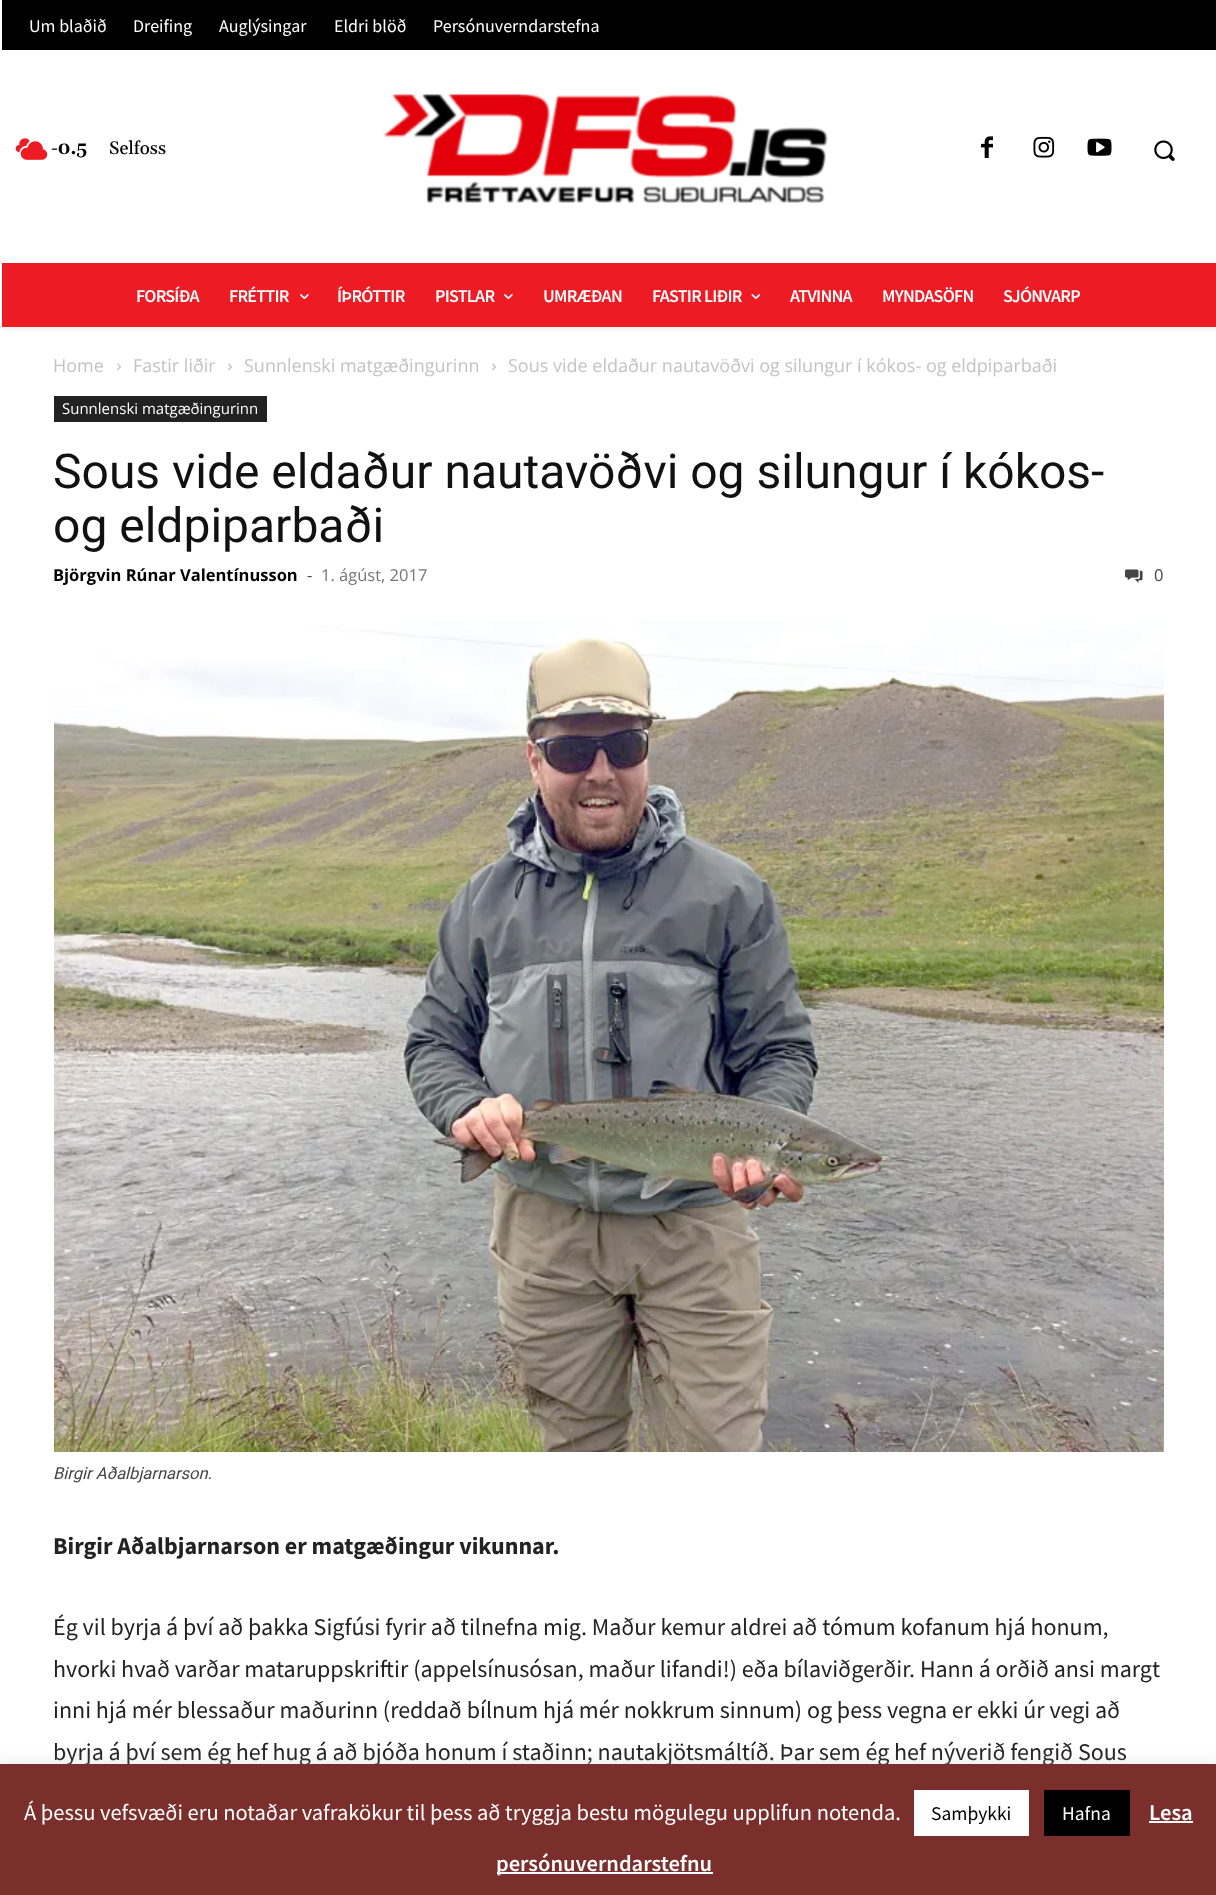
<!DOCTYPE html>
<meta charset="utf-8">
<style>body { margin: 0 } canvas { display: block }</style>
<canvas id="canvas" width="1216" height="1895"></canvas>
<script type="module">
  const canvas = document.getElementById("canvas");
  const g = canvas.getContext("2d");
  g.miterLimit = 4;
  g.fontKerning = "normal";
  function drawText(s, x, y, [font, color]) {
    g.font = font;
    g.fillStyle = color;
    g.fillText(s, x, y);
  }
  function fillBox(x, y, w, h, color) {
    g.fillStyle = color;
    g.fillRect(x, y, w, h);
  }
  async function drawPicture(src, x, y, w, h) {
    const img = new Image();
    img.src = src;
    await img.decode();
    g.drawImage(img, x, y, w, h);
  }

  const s1 = ["18px Source Sans Pro", "#FFFFFF"];
  const s2 = ["bold 18px Gelasio", "#000000"];
  const s3 = ["500 18px Gelasio", "#000000"];
  const s4 = ["600 18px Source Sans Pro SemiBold", "#FFFFFF"];
  const s5 = ["18px Open Sans", "#C3C3C3"];
  const s6 = ["15px Open Sans", "#FFFFFF"];
  const s7 = ["48px Roboto", "#111111"];
  const s8 = ["bold 16.5px Open Sans", "#000000"];
  const s9 = ["16.5px Open Sans", "#444444"];
  const s10 = ["16.5px Open Sans", "#767676"];
  const s11 = ["italic 16.5px Roboto", "#444444"];
  const s12 = ["bold 24px Source Sans Pro", "#222222"];
  const s13 = ["24px Source Sans Pro", "#222222"];
  const s14 = ["22.5px Source Sans Pro", "#FFFFFF"];
  const s15 = ["19.5px Source Sans Pro", "#000000"];
  const s16 = ["19.5px Source Sans Pro", "#FFFFFF"];
  const s17 = ["600 22.5px Source Sans Pro SemiBold", "#FFFFFF"];

  fillBox(0, 0, 1216, 1895, "#FFFFFF");
  fillBox(2, 0, 1214, 50, "#000000");
  drawText("Um blaðið", 29, 32, s1);
  drawText("Dreifing", 133, 32, s1);
  drawText("Auglýsingar", 219, 32, s1);
  drawText("Eldri blöð", 334, 32, s1);
  drawText("Persónuverndarstefna", 433, 32, s1);
  await drawPicture("pic1.png", 15, 138, 33, 22);
  drawText("-0.5", 51, 154, s2);
  drawText("Selfoss", 109, 154, s3);
  await drawPicture("pic2.png", 383, 94, 445, 109);
  await drawPicture("pic3.png", 981, 136, 12, 22);
  await drawPicture("pic4.png", 1033, 136, 22, 22);
  await drawPicture("pic5.png", 1087, 138, 25, 18);
  await drawPicture("pic6.png", 1154, 140, 21, 21);
  fillBox(2, 263, 1214, 64, "#ED1C24");
  g.save();
  g.beginPath();
  g.rect(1, 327, 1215, 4);
  g.clip();
  g.fillStyle = "rgba(0, 0, 0, 0.06)";
  g.filter = "blur(3px)";
  g.beginPath();
  g.rect(2, 266, 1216, 64);
  g.fill();
  g.filter = "none";
  g.restore();
  g.letterSpacing = "-0.75px";
  drawText("FORSÍÐA", 136, 302, s4);
  drawText("FRÉTTIR", 229, 302, s4);
  await drawPicture("pic7.png", 300, 294, 9, 6);
  drawText("ÍÞRÓTTIR", 337, 302, s4);
  drawText("PISTLAR", 435, 302, s4);
  await drawPicture("pic7.png", 504, 294, 9, 6);
  drawText("UMRÆÐAN", 543, 302, s4);
  drawText("FASTIR LIÐIR", 652, 302, s4);
  await drawPicture("pic8.png", 751, 294, 10, 6);
  drawText("ATVINNA", 790, 302, s4);
  drawText("MYNDASÖFN", 882, 302, s4);
  drawText("SJÓNVARP", 1003, 302, s4);
  g.letterSpacing = "0px";
  drawText("Home", 53, 372, s5);
  await drawPicture("pic9.png", 117, 363, 4, 8);
  drawText("Fastir liðir", 133, 372, s5);
  await drawPicture("pic9.png", 228, 363, 4, 8);
  drawText("Sunnlenski matgæðingurinn", 244, 372, s5);
  await drawPicture("pic9.png", 492, 363, 4, 8);
  drawText("Sous vide eldaður nautavöðvi og silungur í kókos- og eldpiparbaði", 508, 372, s5);
  fillBox(54, 396, 213, 26, "#222222");
  drawText("Sunnlenski matgæðingurinn", 62, 414, s6);
  drawText("Sous vide eldaður nautavöðvi og silungur í kókos-", 53, 488, s7);
  drawText("og eldpiparbaði", 53, 542, s7);
  drawText("Björgvin Rúnar Valentínusson", 53, 581, s8);
  drawText("-", 307, 581, s9);
  drawText("1. ágúst, 2017", 321, 581, s10);
  await drawPicture("pic10.png", 1125, 569, 18, 14);
  drawText("0", 1154, 581, s9);
  await drawPicture("pic11.png", 54, 620, 1110, 832);
  drawText("Birgir Aðalbjarnarson.", 53, 1479, s11);
  drawText("Birgir Aðalbjarnarson er matgæðingur vikunnar.", 53, 1554, s12);
  drawText("Ég vil byrja á því að þakka Sigfúsi fyrir að tilnefna mig. Maður kemur aldrei að tómum kofanum hjá honum,", 53, 1635, s13);
  drawText("hvorki hvað varðar mataruppskriftir (appelsínusósan, maður lifandi!) eða bílaviðgerðir. Hann á orðið ansi margt", 53, 1677, s13);
  drawText("inni hjá mér blessaður maðurinn (reddað bílnum hjá mér nokkrum sinnum) og þess vegna er ekki úr vegi að", 53, 1718, s13);
  drawText("byrja á því sem ég hef hug á að bjóða honum í staðinn; nautakjötsmáltíð. Þar sem ég hef nýverið fengið Sous", 53, 1760, s13);
  g.fillStyle = "rgba(172, 171, 171, 0.3)";
  g.filter = "blur(7.5px)";
  g.beginPath();
  g.rect(0, 1763, 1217, 132);
  g.fill();
  g.filter = "none";
  fillBox(0, 1764, 1216, 131, "#7B2F2C");
  drawText("Á þessu vefsvæði eru notaðar vafrakökur til þess að tryggja bestu mögulegu upplifun notenda.", 24, 1820, s14);
  fillBox(914, 1790, 115, 46, "#FFFFFF");
  drawText("Samþykki", 931, 1820, s15);
  fillBox(1044, 1790, 86, 46, "#000000");
  drawText("Hafna", 1062, 1820, s16);
  drawText("Lesa", 1149, 1820, s17);
  fillBox(1149, 1821, 44, 2, "#FFFFFF");
  fillBox(497, 1872, 216, 2, "#FFFFFF");
  drawText("persónuverndarstefnu", 496, 1871, s17);
</script>
